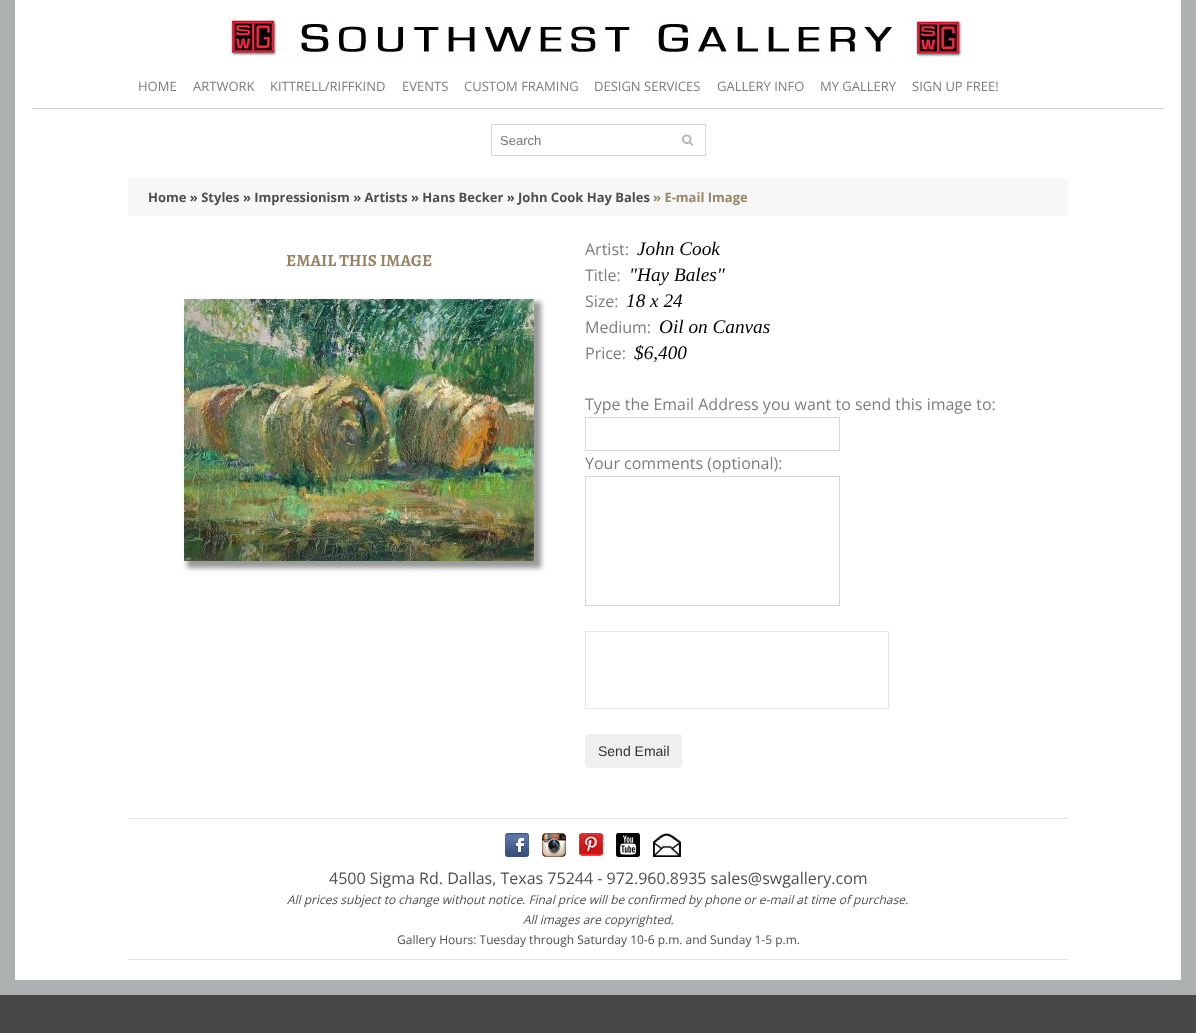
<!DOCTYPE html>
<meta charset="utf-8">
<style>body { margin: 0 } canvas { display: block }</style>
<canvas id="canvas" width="1196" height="1033"></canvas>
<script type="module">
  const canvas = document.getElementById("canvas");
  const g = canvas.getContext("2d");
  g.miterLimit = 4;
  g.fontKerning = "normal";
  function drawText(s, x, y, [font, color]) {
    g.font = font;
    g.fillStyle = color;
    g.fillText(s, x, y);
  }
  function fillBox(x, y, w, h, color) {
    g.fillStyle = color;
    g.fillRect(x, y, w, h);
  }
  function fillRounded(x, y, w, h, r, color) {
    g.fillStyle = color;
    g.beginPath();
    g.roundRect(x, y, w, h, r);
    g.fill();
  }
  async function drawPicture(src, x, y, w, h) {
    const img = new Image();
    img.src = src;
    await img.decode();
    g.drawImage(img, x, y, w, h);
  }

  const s1 = ["13px Open Sans", "#7D7D7D"];
  const s2 = ["13px Liberation Sans", "#757575"];
  const s3 = ["bold 13px Open Sans", "#4E4E4E"];
  const s4 = ["bold 13px Open Sans", "#978564"];
  const s5 = ["bold 17px Alegreya SC", "#978564"];
  const s6 = ["16px Open Sans", "#7D7D7D"];
  const s7 = ["italic 19.25px Liberation Serif", "#000000"];
  const s8 = ["14px Liberation Sans", "#323232"];
  const s9 = ["16px Open Sans", "#4E4E4E"];
  const s10 = ["italic 12px Open Sans", "#4E4E4E"];
  const s11 = ["12px Open Sans", "#4E4E4E"];

  fillBox(0, 0, 1196, 1033, "#484646");
  g.fillStyle = "#FFFFFF";
  g.beginPath();
  g.rect(7.5, -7.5, 1181, 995);
  g.fill();
  g.strokeStyle = "#ADB1B1";
  g.lineWidth = 15;
  g.stroke();
  fillBox(32, 108, 1132, 1, "#D1D1D1");
  await drawPicture("pic1.png", 228, 16, 736, 44);
  drawText("HOME", 138, 91, s1);
  drawText("ARTWORK", 193, 91, s1);
  drawText("KITTRELL/RIFFKIND", 270, 91, s1);
  drawText("EVENTS", 402, 91, s1);
  drawText("CUSTOM FRAMING", 464, 91, s1);
  drawText("DESIGN SERVICES", 594, 91, s1);
  drawText("GALLERY INFO", 717, 91, s1);
  drawText("MY GALLERY", 820, 91, s1);
  drawText("SIGN UP FREE!", 912, 91, s1);
  g.strokeStyle = "#D7D7D7";
  g.lineWidth = 1;
  g.strokeRect(491.5, 124.5, 214, 31);
  drawText("Search", 500, 145, s2);
  await drawPicture("pic2.png", 682, 134, 11, 12);
  fillBox(128, 178, 940, 38, "#F7F7F7");
  drawText("Home » Styles » Impressionism » Artists » Hans Becker » John Cook Hay Bales", 148, 202, s3);
  drawText("» E-mail Image", 653, 202, s4);
  drawText("EMAIL THIS IMAGE", 286, 266, s5);
  g.fillStyle = "#999999";
  g.filter = "blur(2.5px)";
  g.beginPath();
  g.rect(187, 302, 354, 266);
  g.fill();
  g.filter = "none";
  await drawPicture("pic3.png", 184, 299, 350, 262);
  drawText("Artist:", 585, 255, s6);
  drawText("John Cook", 637, 255, s7);
  drawText("Title:", 585, 281, s6);
  drawText("\"Hay Bales\"", 629, 281, s7);
  drawText("Size:", 585, 307, s6);
  drawText("18 x 24", 626, 307, s7);
  drawText("Medium:", 585, 333, s6);
  drawText("Oil on Canvas", 659, 333, s7);
  drawText("Price:", 585, 359, s6);
  drawText("$6,400", 634, 359, s7);
  drawText("Type the Email Address you want to send this image to:", 585, 410, s6);
  g.strokeRect(585.5, 417.5, 254, 33);
  drawText("Your comments (optional):", 585, 469, s6);
  g.strokeRect(585.5, 476.5, 254, 129);
  g.strokeStyle = "#E6E6E6";
  g.strokeRect(585.5, 631.5, 303, 77);
  fillRounded(585, 734, 97, 34, 4, "#EFEFEF");
  drawText("Send Email", 598, 756, s8);
  fillBox(128, 818, 940, 1, "#E3E3E3");
  fillBox(128, 959, 940, 1, "#E3E3E3");
  await drawPicture("pic4.png", 505, 833, 24, 24);
  await drawPicture("pic5.png", 542, 833, 24, 24);
  await drawPicture("pic6.png", 579, 833, 24, 23);
  await drawPicture("pic7.png", 616, 833, 24, 24);
  await drawPicture("pic8.png", 653, 833, 28, 24);
  drawText("4500 Sigma Rd. Dallas, Texas 75244 - 972.960.8935 sales@swgallery.com", 329, 884, s9);
  drawText("All prices subject to change without notice. Final price will be confirmed by phone or e-mail at time of purchase.", 287, 904, s10);
  drawText("All images are copyrighted.", 523, 924, s10);
  drawText("Gallery Hours: Tuesday through Saturday 10-6 p.m. and Sunday 1-5 p.m.", 397, 944, s11);
</script>
